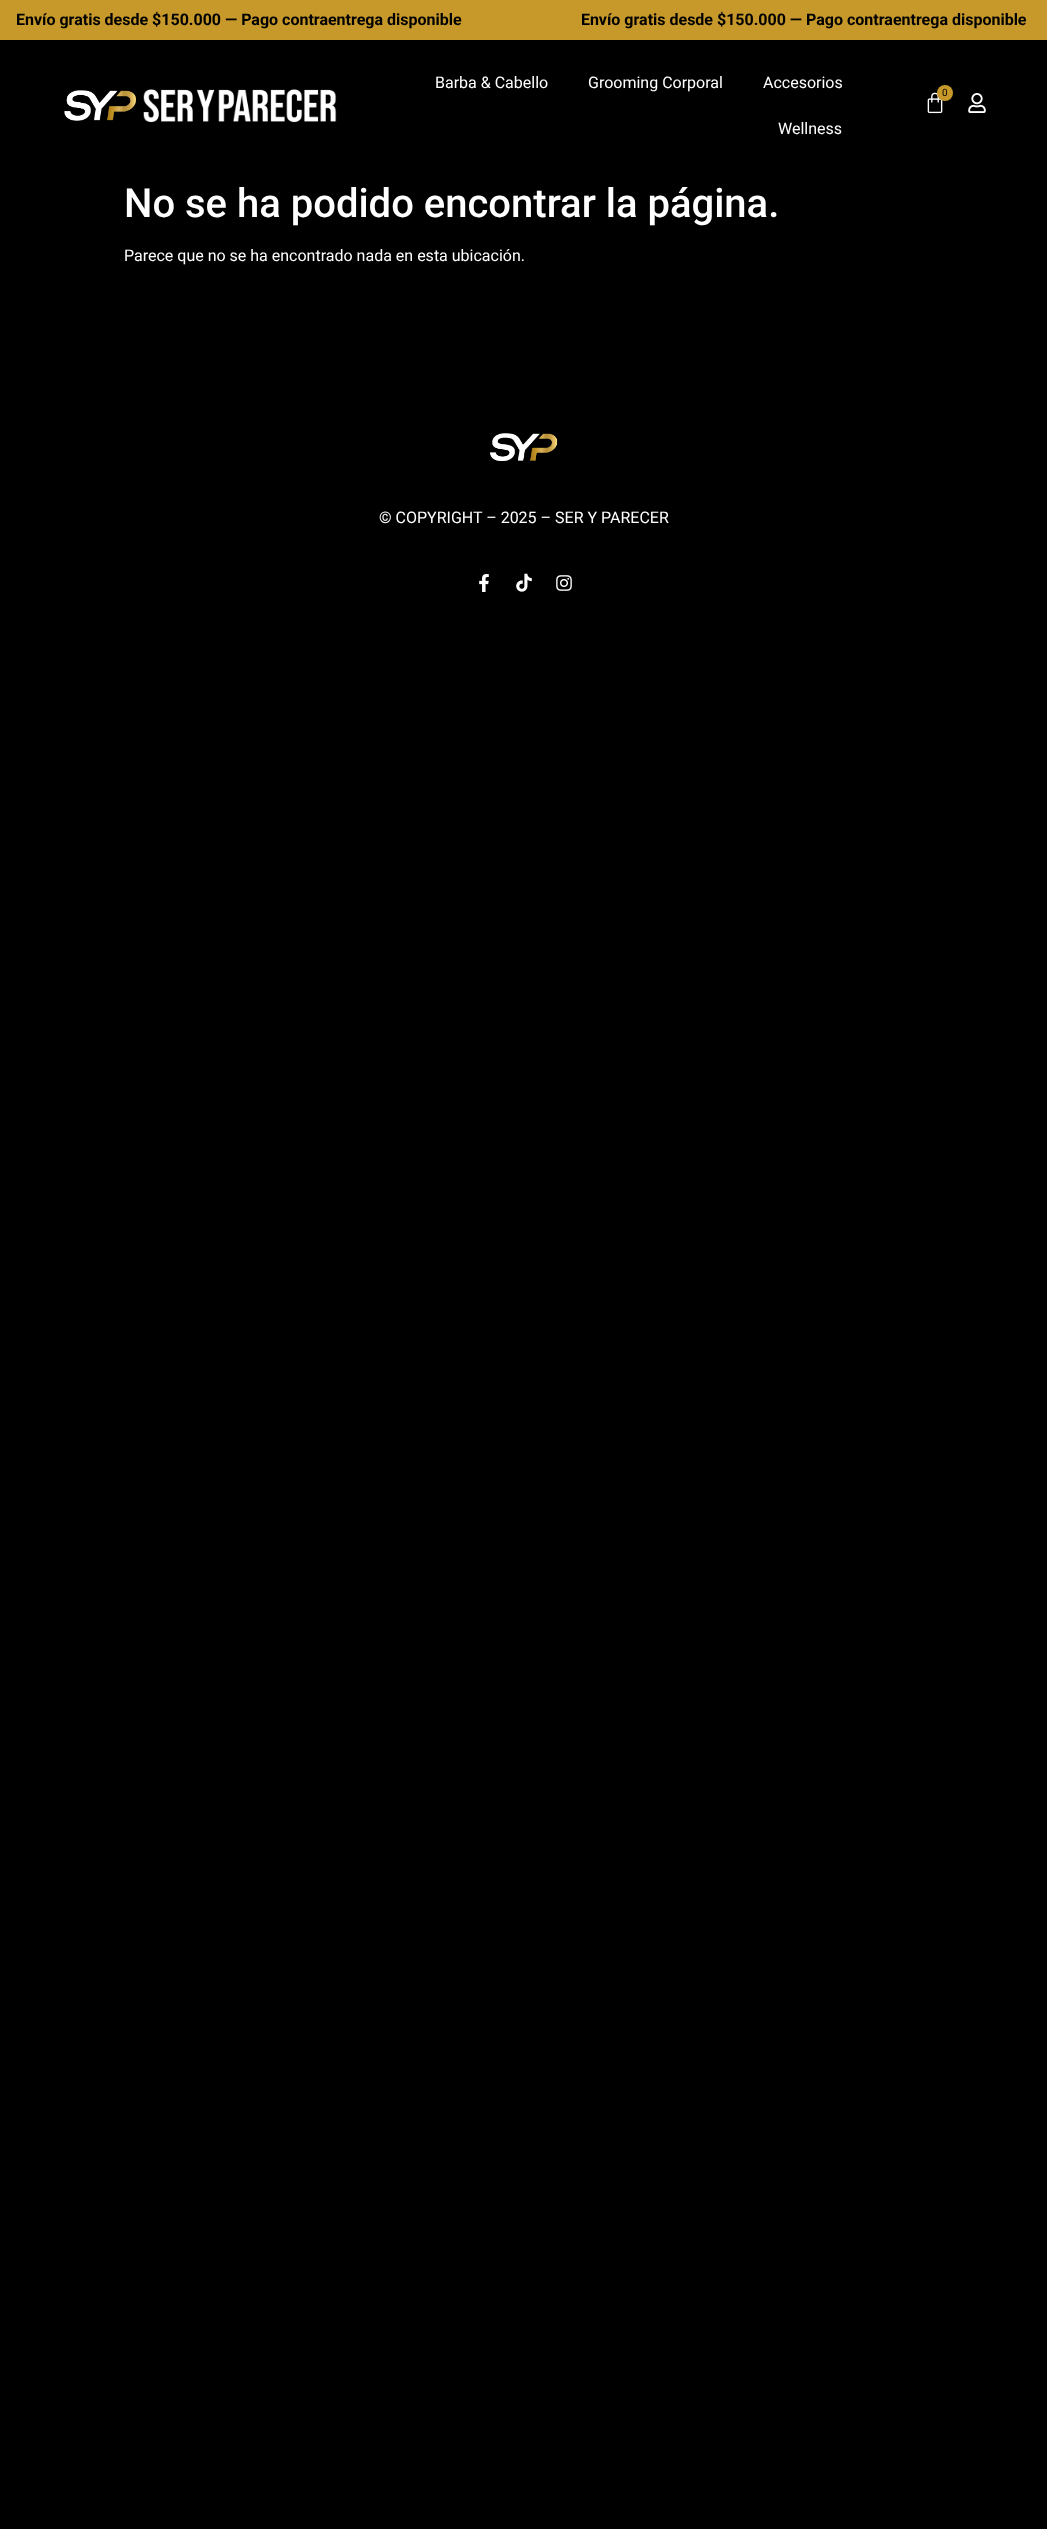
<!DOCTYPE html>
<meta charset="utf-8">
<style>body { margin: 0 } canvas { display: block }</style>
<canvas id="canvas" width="1047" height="2529"></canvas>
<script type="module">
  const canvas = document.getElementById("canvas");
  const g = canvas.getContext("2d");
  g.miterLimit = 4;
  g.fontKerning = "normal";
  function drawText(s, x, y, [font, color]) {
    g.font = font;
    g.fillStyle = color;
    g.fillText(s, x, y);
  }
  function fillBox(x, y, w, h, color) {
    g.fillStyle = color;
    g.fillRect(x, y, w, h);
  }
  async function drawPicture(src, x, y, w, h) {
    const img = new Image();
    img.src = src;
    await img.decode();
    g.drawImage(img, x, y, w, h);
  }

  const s1 = ["bold 16px Roboto", "#000000"];
  const s2 = ["16px Roboto", "#FFFFFF"];
  const s3 = ["10px Roboto", "#000000"];
  const s4 = ["500 40px Roboto", "#FFFFFF"];

  fillBox(0, 0, 1047, 2529, "#000000");
  fillBox(0, 0, 1047, 40, "#C7992B");
  drawText("Envío gratis desde $150.000 — Pago contraentrega disponible                              Envío gratis desde $150.000 — Pago contraentrega disponible", 16, 25, s1);
  await drawPicture("pic1.png", 64, 90, 72, 31);
  await drawPicture("pic2.png", 143, 89, 194, 34);
  drawText("Barba & Cabello", 435, 88, s2);
  drawText("Grooming Corporal", 588, 88, s2);
  drawText("Accesorios", 763, 88, s2);
  drawText("Wellness", 778, 134, s2);
  await drawPicture("pic3.png", 927, 92, 16, 22);
  g.fillStyle = "#C7992B";
  g.beginPath();
  g.arc(945, 93, 8, 0, Math.PI * 2);
  g.fill();
  drawText("0", 942, 96, s3);
  await drawPicture("pic4.png", 968, 93, 18, 20);
  drawText("No se ha podido encontrar la página.", 124, 217, s4);
  drawText("Parece que no se ha encontrado nada en esta ubicación.", 124, 261, s2);
  await drawPicture("pic5.png", 490, 433, 68, 29);
  drawText("© COPYRIGHT – 2025 – SER Y PARECER", 379, 523, s2);
  await drawPicture("pic6.png", 479, 574, 10, 18);
  await drawPicture("pic7.png", 516, 573, 16, 19);
  await drawPicture("pic8.png", 556, 575, 16, 16);
</script>
